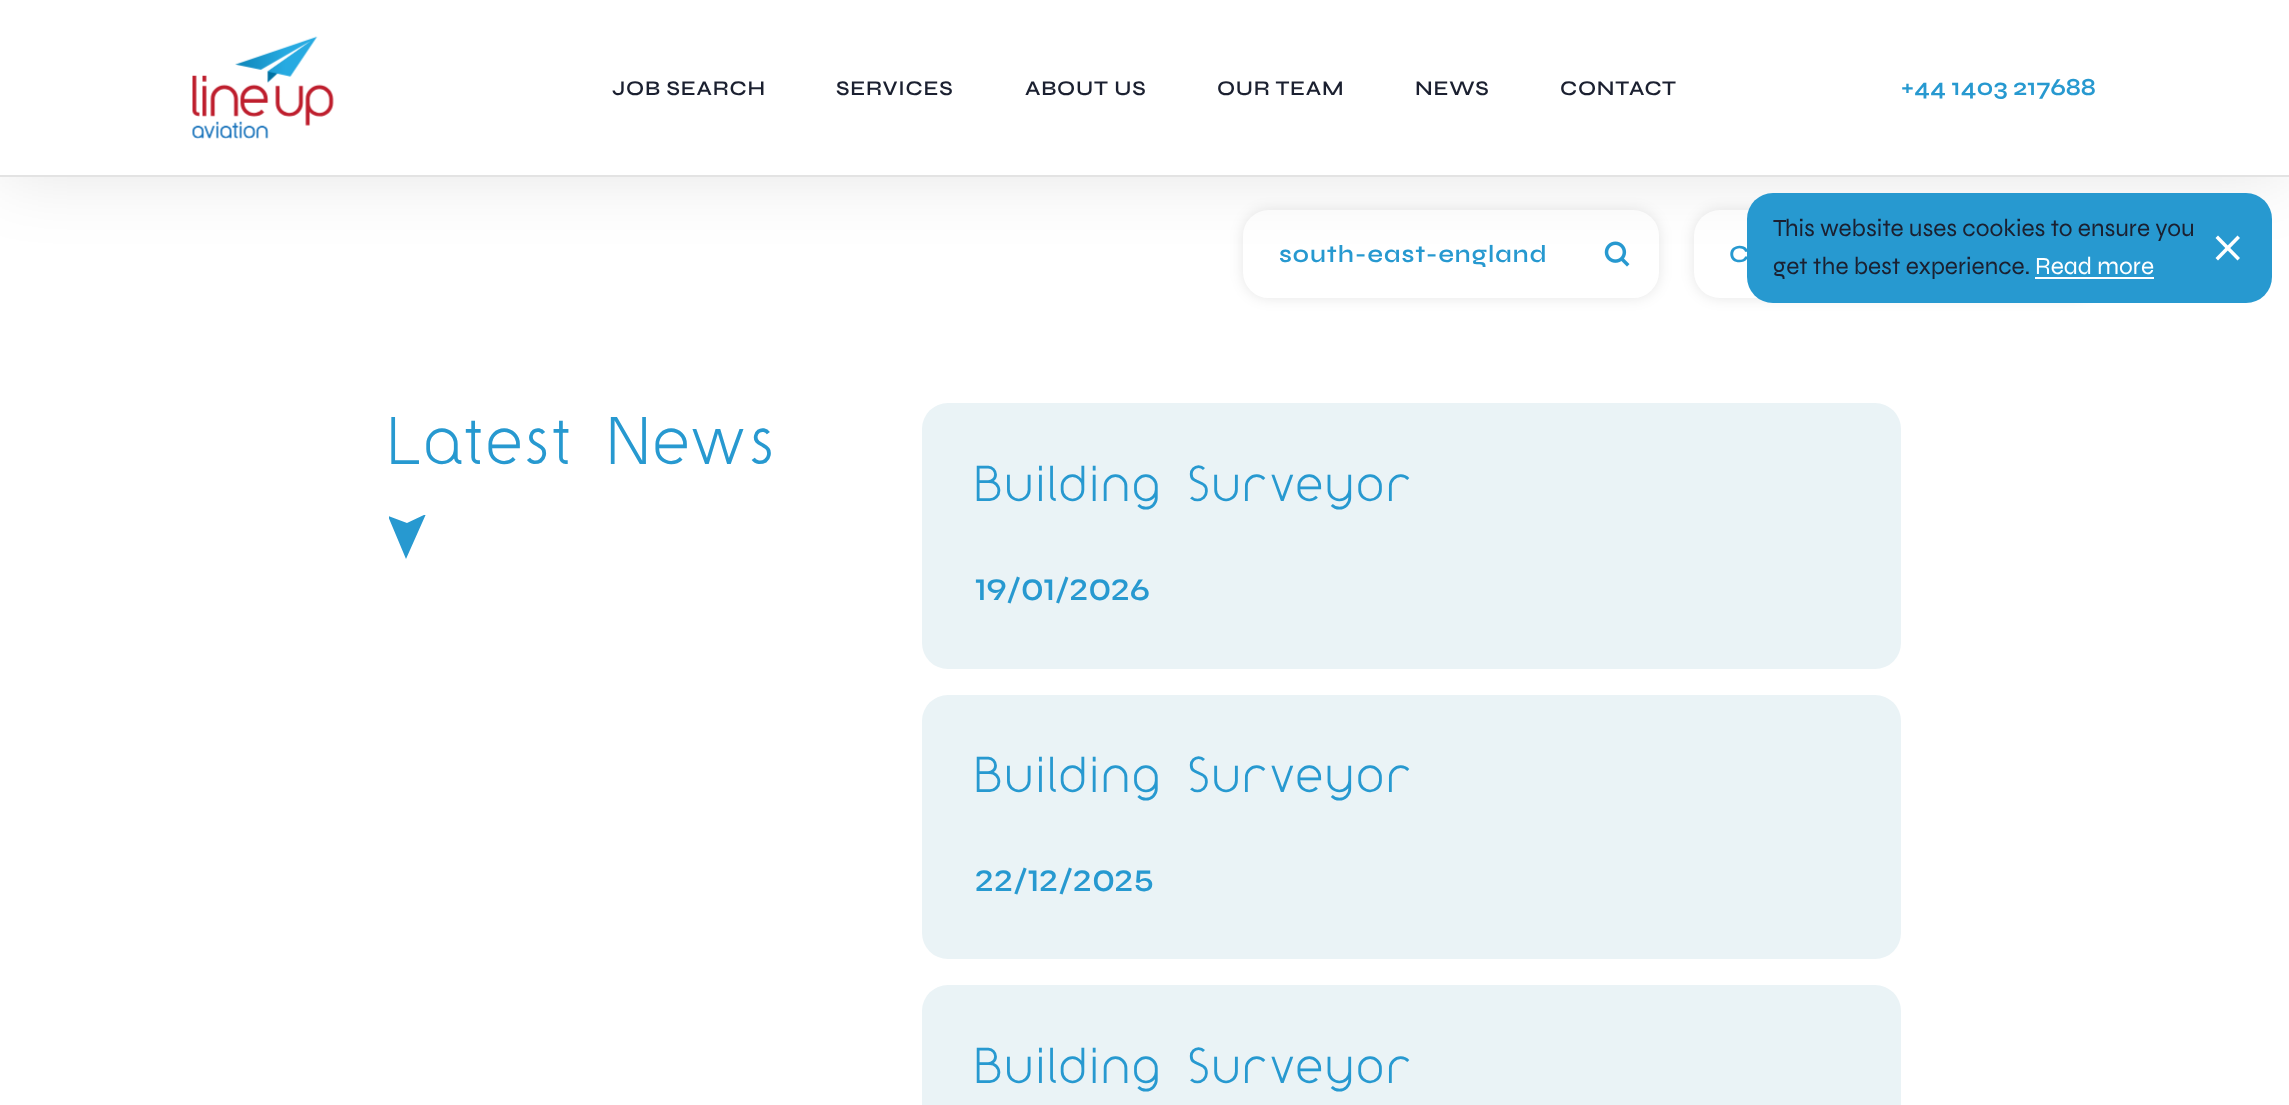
<!DOCTYPE html>
<meta charset="utf-8">
<style>body { margin: 0 } canvas { display: block }</style>
<canvas id="canvas" width="2289" height="1105"></canvas>
<script type="module">
  const canvas = document.getElementById("canvas");
  const g = canvas.getContext("2d");
  g.miterLimit = 4;
  g.fontKerning = "normal";
  function drawText(s, x, y, [font, color]) {
    g.font = font;
    g.fillStyle = color;
    g.fillText(s, x, y);
  }
  function fillBox(x, y, w, h, color) {
    g.fillStyle = color;
    g.fillRect(x, y, w, h);
  }
  function fillRounded(x, y, w, h, r, color) {
    g.fillStyle = color;
    g.beginPath();
    g.roundRect(x, y, w, h, r);
    g.fill();
  }
  async function drawPicture(src, x, y, w, h) {
    const img = new Image();
    img.src = src;
    await img.decode();
    g.drawImage(img, x, y, w, h);
  }

  const s1 = ["600 21px Syne", "#1B2030"];
  const s2 = ["600 24.5px Syne", "#2799D0"];
  const s3 = ["56px 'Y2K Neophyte'", "#2799D0"];
  const s4 = ["42px 'Y2K Neophyte'", "#2799D0"];
  const s5 = ["600 31.5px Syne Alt", "#2799D0"];
  const s6 = ["24.5px Syne", "#1B2030"];
  const s7 = ["24.5px Syne", "#FFFFFF"];

  fillBox(0, 0, 2289, 1105, "#FFFFFF");
  g.fillStyle = "rgba(0, 0, 0, 0.1)";
  g.filter = "blur(7px)";
  g.beginPath();
  g.roundRect(1243, 210, 416, 88, 26);
  g.fill();
  g.filter = "none";
  g.fillStyle = "#FFFFFF";
  g.beginPath();
  g.roundRect(1244, 211, 414, 86, 25);
  g.fill();
  g.strokeStyle = "#FFFFFF";
  g.lineWidth = 2;
  g.stroke();
  await drawPicture("pic2.png", 1604, 241, 26, 26);
  g.fillStyle = "rgba(0, 0, 0, 0.1)";
  g.filter = "blur(7px)";
  g.beginPath();
  g.roundRect(1694, 210, 403, 88, 26);
  g.fill();
  g.filter = "none";
  fillRounded(1694, 210, 403, 88, 26, "#FFFFFF");
  g.fillStyle = "rgba(0, 0, 0, 0.1)";
  g.filter = "blur(35px)";
  g.beginPath();
  g.rect(0, 0, 2289, 177);
  g.fill();
  g.filter = "none";
  fillBox(0, 0, 2289, 175, "#FFFFFF");
  fillBox(0, 175, 2289, 2, "#E3E3E3");
  await drawPicture("pic1.png", 192, 36, 142, 103);
  g.letterSpacing = "0.75px";
  drawText("JOB SEARCH", 612, 95, s1);
  drawText("SERVICES", 836, 95, s1);
  drawText("ABOUT US", 1025, 95, s1);
  drawText("OUR TEAM", 1217, 95, s1);
  drawText("NEWS", 1415, 95, s1);
  drawText("CONTACT", 1560, 95, s1);
  g.letterSpacing = "0px";
  drawText("+44 1403 217688", 1901, 95, s2);
  g.letterSpacing = "1px";
  drawText("south-east-england", 1279, 262, s2);
  g.letterSpacing = "0px";
  drawText("C", 1729, 262, s2);
  g.letterSpacing = "5.6px";
  drawText("Latest News", 389, 464, s3);
  g.save();
  g.beginPath();
  g.rect(389, 515, 38, 45);
  g.clip();
  g.beginPath();
  g.moveTo(388, 516);
  g.lineTo(406, 559);
  g.lineTo(426, 514);
  g.lineTo(407, 523);
  g.closePath();
  g.fill();
  g.restore();
  fillRounded(922, 403, 979, 266, 26, "#EAF3F6");
  g.letterSpacing = "4.25px";
  drawText("Building Surveyor", 975, 501, s4);
  g.letterSpacing = "0px";
  drawText("19/01/2026", 975, 600, s5);
  fillRounded(922, 695, 979, 264, 26, "#EAF3F6");
  g.letterSpacing = "4.25px";
  drawText("Building Surveyor", 975, 792, s4);
  g.letterSpacing = "0px";
  drawText("22/12/2025", 975, 891, s5);
  fillRounded(922, 985, 979, 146, 26, "#EAF3F6");
  g.letterSpacing = "4.25px";
  drawText("Building Surveyor", 975, 1083, s4);
  fillRounded(1747, 193, 525, 110, 26, "#2799D0");
  g.letterSpacing = "0px";
  drawText("This website uses cookies to ensure you", 1773, 236, s6);
  drawText("get the best experience.", 1773, 274, s6);
  drawText("Read more", 2035, 274, s7);
  fillBox(2035, 277, 119, 2, "#FFFFFF");
  g.beginPath();
  g.moveTo(2237.5, 235.5);
  g.lineTo(2240, 238);
  g.lineTo(2218, 260.5);
  g.lineTo(2215.5, 258);
  g.closePath();
  g.fill();
  g.beginPath();
  g.moveTo(2218, 235.5);
  g.lineTo(2240, 258);
  g.lineTo(2237.5, 260.5);
  g.lineTo(2215.5, 238);
  g.closePath();
  g.fill();
</script>
